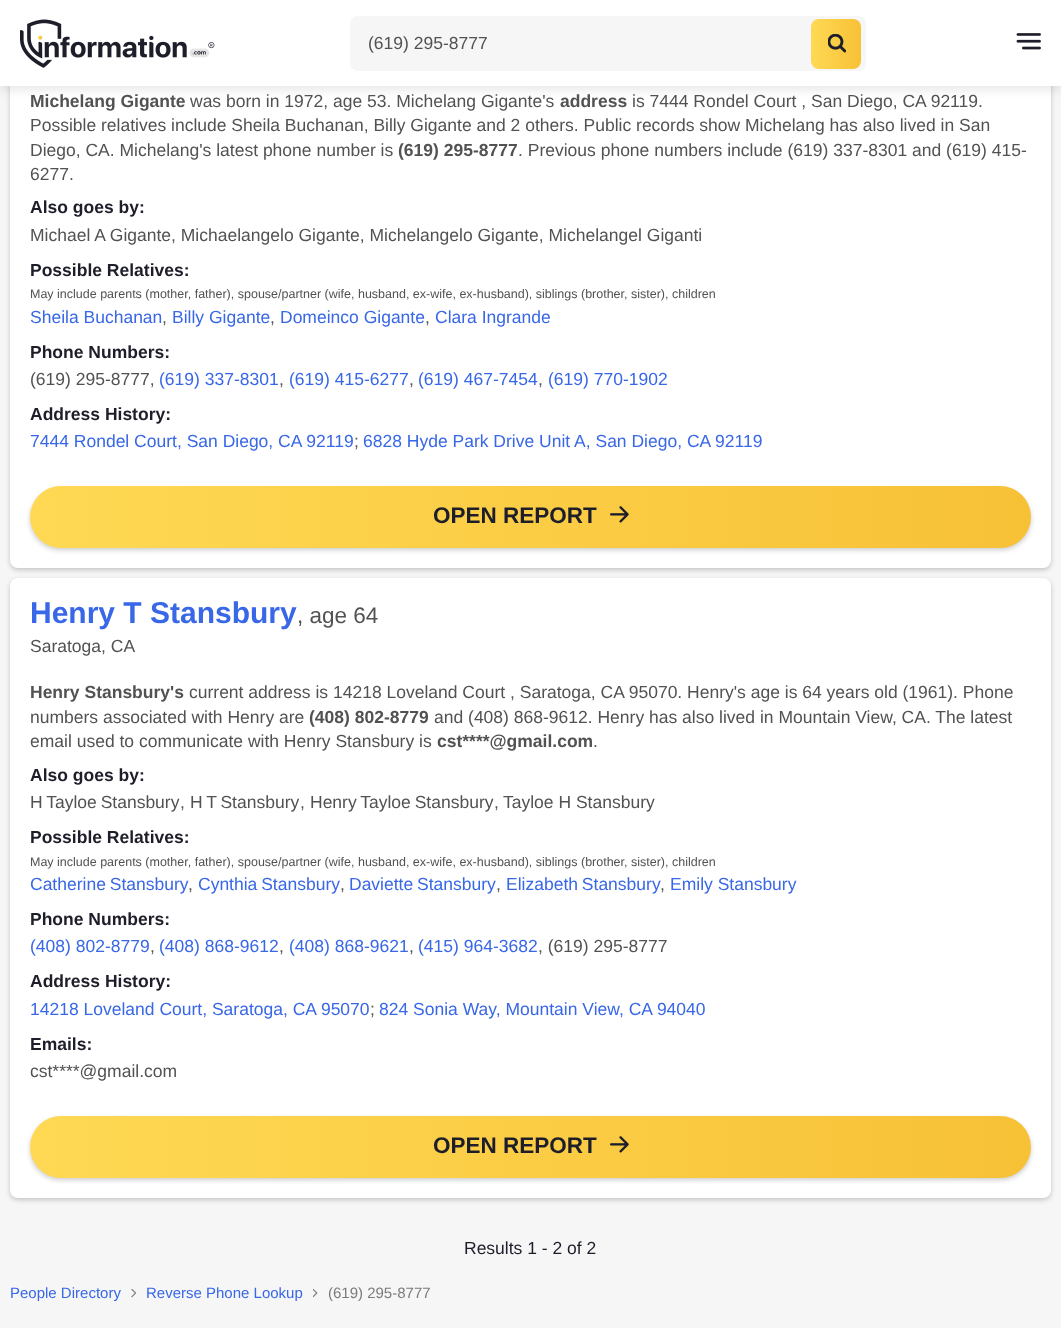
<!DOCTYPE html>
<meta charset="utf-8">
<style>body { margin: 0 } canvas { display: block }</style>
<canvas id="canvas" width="1061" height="1328"></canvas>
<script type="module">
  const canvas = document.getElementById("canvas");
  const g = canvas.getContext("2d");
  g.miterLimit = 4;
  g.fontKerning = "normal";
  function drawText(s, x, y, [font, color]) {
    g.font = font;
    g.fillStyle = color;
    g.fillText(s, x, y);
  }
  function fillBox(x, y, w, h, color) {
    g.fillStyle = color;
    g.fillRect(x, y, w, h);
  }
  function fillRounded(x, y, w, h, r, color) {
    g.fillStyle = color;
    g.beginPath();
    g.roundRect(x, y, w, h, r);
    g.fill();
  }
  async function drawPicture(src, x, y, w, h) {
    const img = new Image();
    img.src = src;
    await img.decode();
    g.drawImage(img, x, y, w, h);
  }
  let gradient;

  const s1 = ["17.5px Liberation Sans", "#525252"];
  const s2 = ["bold 17.5px Liberation Sans", "#525252"];
  const s3 = ["bold 17.5px Liberation Sans", "#1D1E2A"];
  const s4 = ["12.5px Liberation Sans", "#525252"];
  const s5 = ["17.5px Liberation Sans", "#3867E7"];
  const s6 = ["bold 22.5px Liberation Sans", "#1D1E2A"];
  const s7 = ["bold 30px Liberation Sans", "#3867E7"];
  const s8 = ["22.5px Liberation Sans", "#525252"];
  const s9 = ["17.5px Liberation Sans", "#1D1E2A"];
  const s10 = ["15px Liberation Sans", "#3867E7"];
  const s11 = ["15px Liberation Sans", "#7B7B7B"];

  fillBox(0, 0, 1061, 1328, "#F6F6F6");
  g.fillStyle = "rgba(0, 0, 0, 0.2)";
  g.filter = "blur(2.5px)";
  g.beginPath();
  g.roundRect(10, -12, 1041, 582, 8);
  g.fill();
  g.filter = "none";
  fillRounded(10, -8, 1041, 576, 8, "#FFFFFF");
  g.fillStyle = "rgba(0, 0, 0, 0.08)";
  g.filter = "blur(4px)";
  g.beginPath();
  g.rect(0, 5, 1061, 86);
  g.fill();
  g.filter = "none";
  fillBox(0, 0, 1061, 86, "#FFFFFF");
  await drawPicture("pic1.png", 20, 19, 195, 49);
  fillRounded(350, 16, 516, 55, 8, "#F6F6F6");
  drawText("(619) 295-8777", 368, 49, s1);
  gradient = g.createLinearGradient(811, 44, 861, 44);
  gradient.addColorStop(0, "#FFD954");
  gradient.addColorStop(1, "#F7C136");
  g.fillStyle = gradient;
  g.beginPath();
  g.roundRect(811, 19, 50, 50, 8);
  g.fill();
  await drawPicture("pic2.png", 828, 34, 18, 19);
  await drawPicture("pic3.png", 1016, 33, 25, 17);
  drawText("Michelang Gigante", 30, 107, s2);
  drawText("was born in 1972, age 53. Michelang Gigante's", 190, 107, s1);
  drawText("address", 560, 107, s2);
  drawText("is 7444 Rondel Court , San Diego, CA 92119.", 632, 107, s1);
  drawText("Possible relatives include Sheila Buchanan, Billy Gigante and 2 others. Public records show Michelang has also lived in San", 30, 131, s1);
  drawText("Diego, CA. Michelang's latest phone number is", 30, 156, s1);
  drawText("(619) 295-8777", 398, 156, s2);
  drawText(". Previous phone numbers include (619) 337-8301 and (619) 415-", 518, 156, s1);
  drawText("6277.", 30, 180, s1);
  drawText("Also goes by:", 30, 213, s3);
  drawText("Michael A Gigante, Michaelangelo Gigante, Michelangelo Gigante, Michelangel Giganti", 30, 241, s1);
  drawText("Possible Relatives:", 30, 276, s3);
  drawText("May include parents (mother, father), spouse/partner (wife, husband, ex-wife, ex-husband), siblings (brother, sister), children", 30, 298, s4);
  drawText("Sheila Buchanan", 30, 323, s5);
  drawText(",", 162, 323, s1);
  drawText("Billy Gigante", 172, 323, s5);
  drawText(",", 270, 323, s1);
  drawText("Domeinco Gigante", 280, 323, s5);
  drawText(",", 425, 323, s1);
  drawText("Clara Ingrande", 435, 323, s5);
  drawText("Phone Numbers:", 30, 358, s3);
  drawText("(619) 295-8777,", 30, 385, s1);
  drawText("(619) 337-8301", 159, 385, s5);
  drawText(",", 279, 385, s1);
  drawText("(619) 415-6277", 289, 385, s5);
  drawText(",", 409, 385, s1);
  drawText("(619) 467-7454", 418, 385, s5);
  drawText(",", 538, 385, s1);
  drawText("(619) 770-1902", 548, 385, s5);
  drawText("Address History:", 30, 420, s3);
  drawText("7444 Rondel Court, San Diego, CA 92119", 30, 447, s5);
  drawText(";", 354, 447, s1);
  drawText("6828 Hyde Park Drive Unit A, San Diego, CA 92119", 363, 447, s5);
  g.fillStyle = "rgba(0, 0, 0, 0.2)";
  g.filter = "blur(2.5px)";
  g.beginPath();
  g.roundRect(30, 489, 1001, 61, 30.5);
  g.fill();
  g.filter = "none";
  gradient = g.createLinearGradient(30, 517, 1031, 517);
  gradient.addColorStop(0, "#FFD954");
  gradient.addColorStop(1, "#F7C136");
  g.fillStyle = gradient;
  g.beginPath();
  g.roundRect(30, 486, 1001, 62, 31);
  g.fill();
  drawText("OPEN REPORT", 433, 523, s6);
  await drawPicture("pic4.png", 610, 506, 19, 17);
  g.fillStyle = "rgba(0, 0, 0, 0.2)";
  g.filter = "blur(2.5px)";
  g.beginPath();
  g.roundRect(10, 580, 1041, 620, 8);
  g.fill();
  g.filter = "none";
  fillRounded(10, 578, 1041, 620, 8, "#FFFFFF");
  drawText("Henry T Stansbury", 30, 623, s7);
  drawText(", age 64", 297, 623, s8);
  drawText("Saratoga, CA", 30, 652, s1);
  drawText("Henry Stansbury's", 30, 698, s2);
  drawText("current address is 14218 Loveland Court , Saratoga, CA 95070. Henry's age is 64 years old (1961). Phone", 189, 698, s1);
  drawText("numbers associated with Henry are", 30, 723, s1);
  drawText("(408) 802-8779", 309, 723, s2);
  drawText("and (408) 868-9612. Henry has also lived in Mountain View, CA. The latest", 434, 723, s1);
  drawText("email used to communicate with Henry Stansbury is", 30, 747, s1);
  drawText("cst****@gmail.com", 437, 747, s2);
  drawText(".", 593, 747, s1);
  drawText("Also goes by:", 30, 781, s3);
  g.wordSpacing = "-1px";
  drawText("H Tayloe Stansbury", 30, 808, s1);
  g.wordSpacing = "0px";
  drawText(",", 180, 808, s1);
  g.wordSpacing = "-1px";
  drawText("H T Stansbury", 190, 808, s1);
  g.wordSpacing = "0px";
  drawText(",", 300, 808, s1);
  g.wordSpacing = "-1px";
  drawText("Henry Tayloe Stansbury", 310, 808, s1);
  g.wordSpacing = "0px";
  drawText(",", 494, 808, s1);
  drawText("Tayloe H Stansbury", 503, 808, s1);
  drawText("Possible Relatives:", 30, 843, s3);
  drawText("May include parents (mother, father), spouse/partner (wife, husband, ex-wife, ex-husband), siblings (brother, sister), children", 30, 866, s4);
  g.wordSpacing = "-1px";
  drawText("Catherine Stansbury", 30, 890, s5);
  g.wordSpacing = "0px";
  drawText(",", 188, 890, s1);
  g.wordSpacing = "-1px";
  drawText("Cynthia Stansbury", 198, 890, s5);
  g.wordSpacing = "0px";
  drawText(",", 340, 890, s1);
  g.wordSpacing = "-1px";
  drawText("Daviette Stansbury", 349, 890, s5);
  g.wordSpacing = "0px";
  drawText(",", 496, 890, s1);
  g.wordSpacing = "-1px";
  drawText("Elizabeth Stansbury", 506, 890, s5);
  g.wordSpacing = "0px";
  drawText(",", 660, 890, s1);
  drawText("Emily Stansbury", 670, 890, s5);
  drawText("Phone Numbers:", 30, 925, s3);
  drawText("(408) 802-8779", 30, 952, s5);
  drawText(",", 150, 952, s1);
  drawText("(408) 868-9612", 159, 952, s5);
  drawText(",", 279, 952, s1);
  drawText("(408) 868-9621", 289, 952, s5);
  drawText(",", 409, 952, s1);
  drawText("(415) 964-3682", 418, 952, s5);
  drawText(", (619) 295-8777", 538, 952, s1);
  drawText("Address History:", 30, 987, s3);
  drawText("14218 Loveland Court, Saratoga, CA 95070", 30, 1015, s5);
  drawText(";", 370, 1015, s1);
  drawText("824 Sonia Way, Mountain View, CA 94040", 379, 1015, s5);
  drawText("Emails:", 30, 1050, s3);
  drawText("cst****@gmail.com", 30, 1077, s1);
  g.fillStyle = "rgba(0, 0, 0, 0.2)";
  g.filter = "blur(2.5px)";
  g.beginPath();
  g.roundRect(30, 1119, 1001, 61, 30.5);
  g.fill();
  g.filter = "none";
  gradient = g.createLinearGradient(30, 1147, 1031, 1147);
  gradient.addColorStop(0, "#FFD954");
  gradient.addColorStop(1, "#F7C136");
  g.fillStyle = gradient;
  g.beginPath();
  g.roundRect(30, 1116, 1001, 62, 31);
  g.fill();
  drawText("OPEN REPORT", 433, 1153, s6);
  await drawPicture("pic4.png", 610, 1136, 19, 17);
  drawText("Results 1 - 2 of 2", 464, 1254, s9);
  drawText("People Directory", 10, 1298, s10);
  await drawPicture("pic5.png", 131, 1289, 5, 9);
  drawText("Reverse Phone Lookup", 146, 1298, s10);
  await drawPicture("pic6.png", 313, 1289, 5, 9);
  drawText("(619) 295-8777", 328, 1298, s11);
</script>
